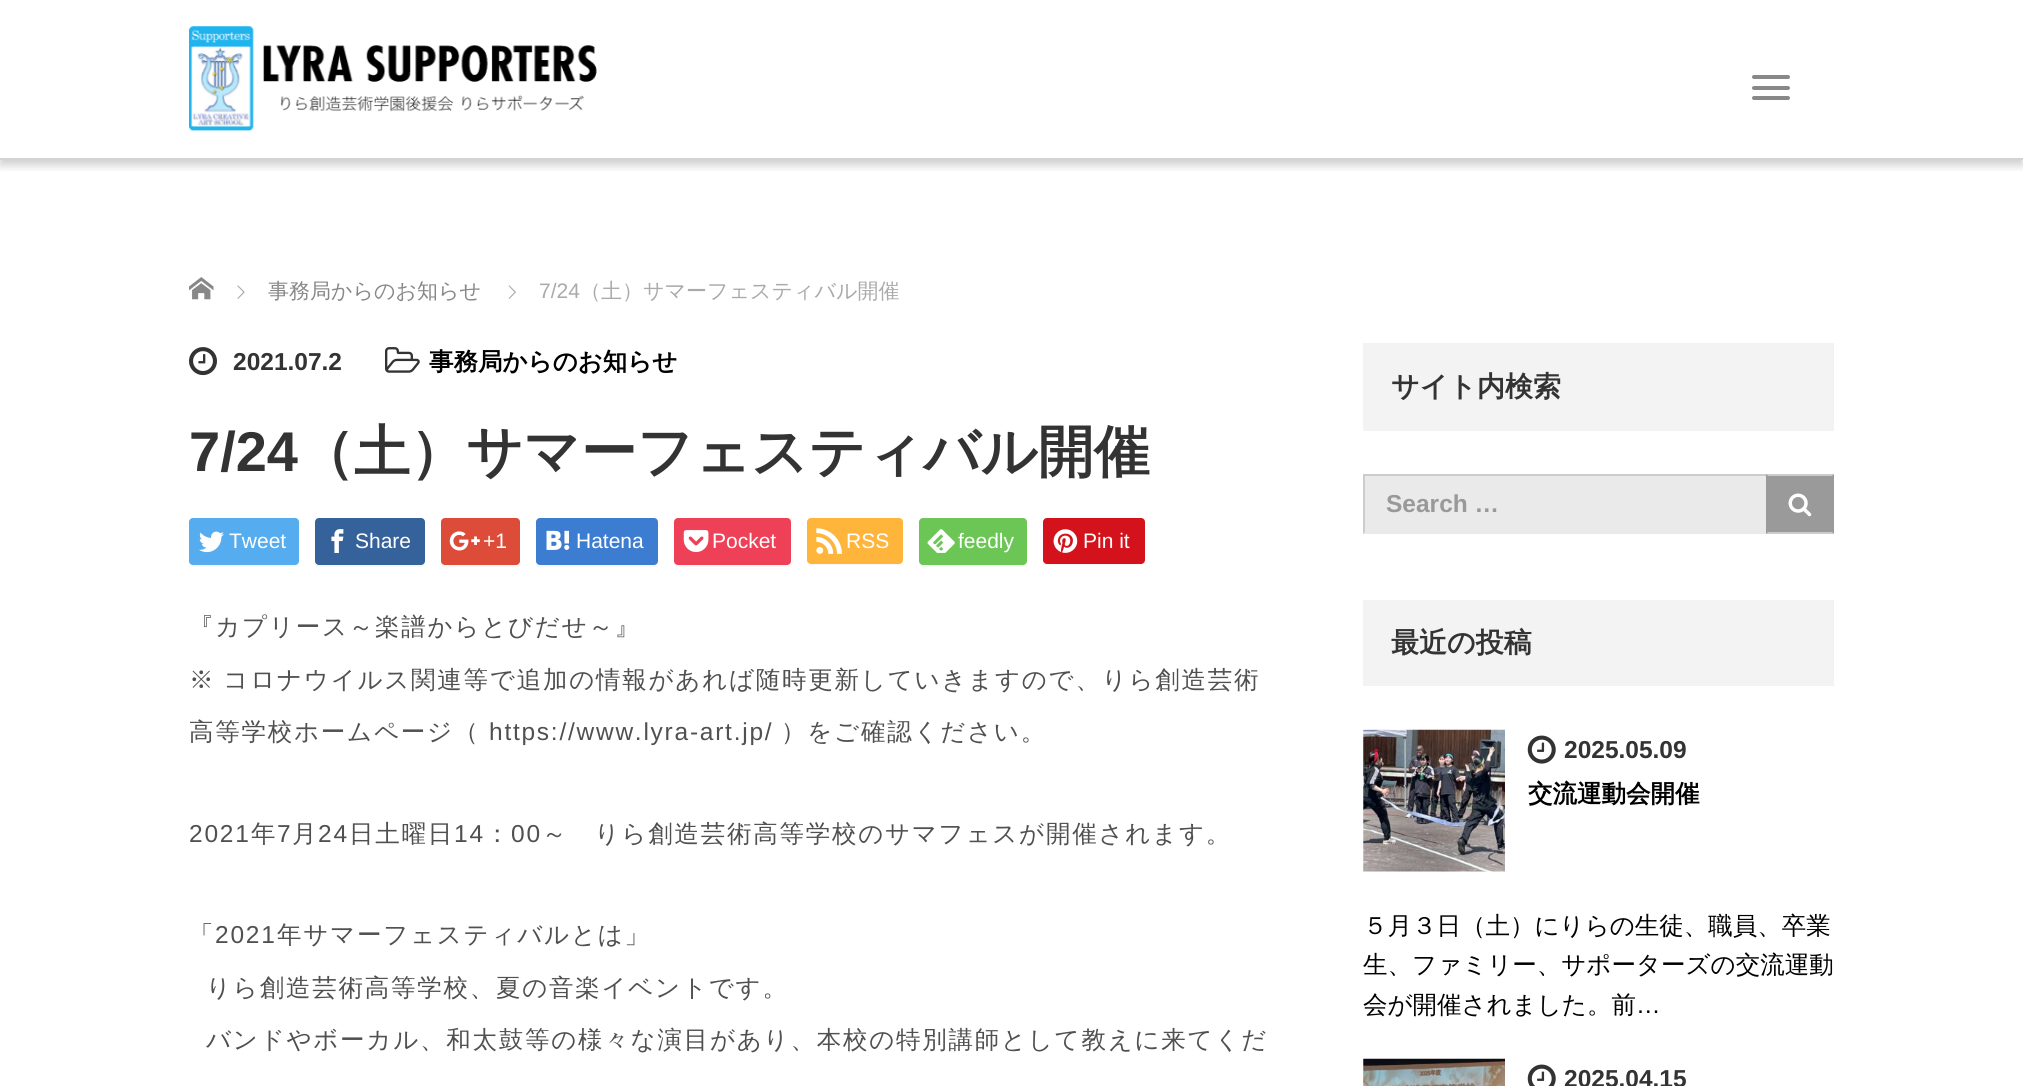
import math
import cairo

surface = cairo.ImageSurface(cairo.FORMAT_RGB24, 2023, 1086)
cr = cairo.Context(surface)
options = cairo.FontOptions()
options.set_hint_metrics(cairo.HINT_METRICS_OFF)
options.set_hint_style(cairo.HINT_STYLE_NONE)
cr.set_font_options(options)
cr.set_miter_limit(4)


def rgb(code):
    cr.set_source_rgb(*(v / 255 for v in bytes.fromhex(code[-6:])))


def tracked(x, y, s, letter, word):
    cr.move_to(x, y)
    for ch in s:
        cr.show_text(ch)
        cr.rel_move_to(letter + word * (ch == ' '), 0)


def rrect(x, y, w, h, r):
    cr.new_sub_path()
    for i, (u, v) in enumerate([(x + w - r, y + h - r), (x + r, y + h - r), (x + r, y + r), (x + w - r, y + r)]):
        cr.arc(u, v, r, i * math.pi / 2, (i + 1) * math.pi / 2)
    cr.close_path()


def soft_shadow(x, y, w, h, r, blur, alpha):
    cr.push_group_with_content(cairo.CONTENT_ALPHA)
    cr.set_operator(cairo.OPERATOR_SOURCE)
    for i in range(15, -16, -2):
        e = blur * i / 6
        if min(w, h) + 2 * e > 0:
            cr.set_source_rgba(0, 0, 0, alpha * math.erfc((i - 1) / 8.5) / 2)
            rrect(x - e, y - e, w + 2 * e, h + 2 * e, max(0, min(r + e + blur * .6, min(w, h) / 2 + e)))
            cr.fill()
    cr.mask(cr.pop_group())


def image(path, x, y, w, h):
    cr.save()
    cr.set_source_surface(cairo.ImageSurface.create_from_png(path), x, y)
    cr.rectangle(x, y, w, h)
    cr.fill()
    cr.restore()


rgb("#ffffff")
cr.paint()
cr.save()
cr.rectangle(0, 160, 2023, 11)
cr.clip()
rgb("#000000")
soft_shadow(0, 5, 2023, 160, 0, 5, 0.2)
cr.restore()
rgb("#d3d3d3")
cr.rectangle(0, 158, 2023, 2)
cr.fill()
image("img/1.png", 189, 26, 408, 105)
rgb("#888888")
rrect(1752, 75, 38, 4, 2)
cr.fill()
rrect(1752, 86, 38, 4, 2)
cr.fill()
rrect(1752, 96, 38, 4, 2)
cr.fill()
image("img/2.png", 189, 277, 25, 23)
image("img/3.png", 237, 285, 8, 14)
image("img/4.png", 508, 285, 8, 14)
image("img/5.png", 189, 347, 28, 29)
image("img/6.png", 385, 347, 35, 26)
rgb("#f7f7f7")
cr.new_path()
cr.move_to(189, 562)
cr.line_to(189, 563)
cr.curve_to(189, 565, 191, 567, 193, 567)
cr.line_to(295, 567)
cr.curve_to(297, 567, 299, 565, 299, 563)
cr.curve_to(298, 564, 297, 565, 296, 565)
cr.line_to(192, 565)
cr.curve_to(191, 565, 189, 564, 189, 562)
cr.close_path()
cr.fill()
rgb("#55acee")
rrect(189, 518, 110, 47, 4)
cr.fill()
image("img/7.png", 199, 531, 25, 22)
rgb("#f7f7f7")
cr.new_path()
cr.move_to(315, 562)
cr.line_to(315, 563)
cr.curve_to(315, 565, 317, 567, 319, 567)
cr.line_to(421, 567)
cr.curve_to(423, 567, 425, 565, 425, 563)
cr.curve_to(424, 564, 423, 565, 422, 565)
cr.line_to(318, 565)
cr.curve_to(317, 565, 315, 564, 315, 562)
cr.close_path()
cr.fill()
rgb("#35629a")
rrect(315, 518, 110, 47, 4)
cr.fill()
image("img/8.png", 331, 529, 13, 24)
rgb("#f7f7f7")
cr.new_path()
cr.move_to(441, 562)
cr.curve_to(441, 570, 451, 567, 457, 567)
cr.line_to(504, 567)
cr.curve_to(523, 567, 520, 569, 520, 550)
cr.line_to(520, 523)
cr.line_to(520, 562)
cr.curve_to(520, 564, 518, 565, 516, 565)
cr.line_to(444, 565)
cr.curve_to(443, 565, 441, 564, 441, 562)
cr.close_path()
cr.fill()
rgb("#dd4b39")
rrect(441, 518, 79, 47, 4)
cr.fill()
image("img/9.png", 449, 531, 31, 20)
rgb("#f7f7f7")
cr.new_path()
cr.move_to(536, 564)
cr.curve_to(536, 566, 538, 567, 540, 567)
cr.line_to(654, 567)
cr.curve_to(656, 567, 658, 565, 658, 563)
cr.line_to(658, 562)
cr.line_to(658, 563)
cr.curve_to(657, 564, 656, 565, 654, 565)
cr.line_to(538, 565)
cr.close_path()
cr.fill()
rgb("#3c7dd1")
rrect(536, 518, 122, 47, 4)
cr.fill()
image("img/10.png", 546, 530, 24, 20)
rgb("#f7f7f7")
cr.new_path()
cr.move_to(674, 563)
cr.curve_to(674, 565, 676, 567, 678, 567)
cr.line_to(787, 567)
cr.curve_to(789, 567, 791, 565, 791, 563)
cr.line_to(791, 562)
cr.curve_to(791, 564, 789, 565, 788, 565)
cr.line_to(677, 565)
cr.curve_to(676, 565, 675, 564, 674, 563)
cr.close_path()
cr.fill()
rgb("#ee4056")
rrect(674, 518, 117, 47, 4)
cr.fill()
image("img/11.png", 683, 530, 26, 23)
rgb("#f7f7f7")
cr.new_path()
cr.move_to(807, 561)
cr.curve_to(807, 563, 809, 565, 811, 565)
cr.line_to(899, 565)
cr.curve_to(901, 565, 903, 563, 903, 561)
cr.line_to(903, 560)
cr.curve_to(903, 562, 901, 564, 900, 564)
cr.line_to(810, 564)
cr.curve_to(809, 564, 808, 563, 807, 561)
cr.close_path()
cr.fill()
rgb("#ffb53c")
rrect(807, 518, 96, 46, 4)
cr.fill()
image("img/12.png", 816, 528, 26, 26)
rgb("#f7f7f7")
cr.new_path()
cr.move_to(919, 563)
cr.curve_to(919, 565, 921, 567, 923, 567)
cr.line_to(1023, 567)
cr.curve_to(1025, 567, 1027, 565, 1027, 563)
cr.curve_to(1027, 564, 1025, 565, 1024, 565)
cr.line_to(921, 565)
cr.close_path()
cr.fill()
rgb("#6cc655")
rrect(919, 518, 108, 47, 4)
cr.fill()
image("img/13.png", 927, 529, 28, 24)
rgb("#f7f7f7")
cr.new_path()
cr.move_to(1043, 560)
cr.line_to(1043, 561)
cr.curve_to(1043, 563, 1045, 565, 1047, 565)
cr.line_to(1141, 565)
cr.curve_to(1143, 565, 1145, 563, 1145, 561)
cr.line_to(1145, 524)
cr.line_to(1144, 522)
cr.line_to(1144, 560)
cr.curve_to(1144, 562, 1143, 564, 1141, 564)
cr.line_to(1046, 564)
cr.curve_to(1045, 564, 1043, 562, 1043, 560)
cr.close_path()
cr.fill()
rgb("#d4121c")
rrect(1043, 518, 102, 46, 4)
cr.fill()
image("img/14.png", 1053, 529, 25, 24)
for x, y, w, h, color in [
    (1363, 343, 471, 88, "#f3f3f3"),
    (1363, 476, 403, 58, "#eaeaea"),
    (1363, 474, 405, 2, "#cccccc"),
]:
    rgb(color)
    cr.rectangle(x, y, w, h)
    cr.fill()
cr.new_path()
cr.move_to(1363, 534)
cr.line_to(1363, 474)
cr.line_to(1365, 476)
cr.line_to(1365, 532)
cr.close_path()
cr.fill()
rgb("#9a9a9a")
cr.rectangle(1766, 474, 68, 60)
cr.fill()
rgb("#cccccc")
cr.new_path()
cr.move_to(1766, 474)
cr.line_to(1834, 474)
cr.line_to(1832, 476)
cr.line_to(1768, 476)
cr.close_path()
cr.fill()
cr.new_path()
cr.move_to(1834, 534)
cr.line_to(1766, 534)
cr.line_to(1768, 532)
cr.line_to(1832, 532)
cr.close_path()
cr.fill()
image("img/15.png", 1788, 493, 24, 24)
rgb("#f3f3f3")
cr.rectangle(1363, 600, 471, 86)
cr.fill()
image("img/16.png", 1363, 729, 142, 143)
image("img/17.png", 1527, 735, 29, 29)
image("img/18.png", 1363, 1058, 142, 28)
image("img/19.png", 1527, 1064, 29, 22)
cr.select_font_face("WenQuanYi Zen Hei Medium")
cr.set_font_size(21)
rgb("#888888")
cr.move_to(268, 298)
cr.show_text("事務局からのお知らせ")
cr.select_font_face("Liberation Sans")
rgb("#aaaaaa")
cr.move_to(539, 298)
cr.show_text("7/24")
cr.select_font_face("WenQuanYi Zen Hei Medium")
cr.move_to(580, 298)
cr.show_text("（土）サマーフェスティバル開催")
cr.select_font_face("Liberation Sans", cairo.FONT_SLANT_NORMAL, cairo.FONT_WEIGHT_BOLD)
cr.set_font_size(24.5)
rgb("#333333")
cr.move_to(233, 370)
cr.show_text("2021.07.2")
cr.select_font_face("WenQuanYi Zen Hei", cairo.FONT_SLANT_NORMAL, cairo.FONT_WEIGHT_BOLD)
rgb("#000000")
cr.move_to(429, 370)
cr.show_text("事務局からのお知らせ")
cr.select_font_face("Liberation Sans", cairo.FONT_SLANT_NORMAL, cairo.FONT_WEIGHT_BOLD)
cr.set_font_size(56)
rgb("#333333")
cr.move_to(189, 471)
cr.show_text("7/24")
cr.select_font_face("WenQuanYi Zen Hei", cairo.FONT_SLANT_NORMAL, cairo.FONT_WEIGHT_BOLD)
cr.move_to(298, 471)
cr.show_text("（土）サマーフェスティバル開催")
cr.select_font_face("Liberation Sans")
cr.set_font_size(21)
rgb("#ffffff")
for x, y, s in [
    (229, 548, "Tweet"),
    (355, 548, "Share"),
    (483, 548, "+1"),
    (576, 548, "Hatena"),
    (712, 548, "Pocket"),
    (846, 548, "RSS"),
    (958, 548, "feedly"),
    (1083, 548, "Pin it"),
]:
    cr.move_to(x, y)
    cr.show_text(s)
cr.select_font_face("WenQuanYi Zen Hei Medium")
cr.set_font_size(24.5)
rgb("#505050")
tracked(189, 635, "『カプリース～楽譜からとびだせ～』", 1.75, 0)
tracked(189, 688, "※ コロナウイルス関連等で追加の情報があれば随時更新していきますので、りら創造芸術", 1.75, -1)
tracked(189, 740, "高等学校ホームページ（", 1.75, 0)
cr.select_font_face("Liberation Sans")
tracked(489, 740, "https://www.lyra-art.jp/", 1.75, 0)
cr.select_font_face("WenQuanYi Zen Hei Medium")
tracked(781, 740, "）をご確認ください。", 1.75, 0)
cr.select_font_face("Liberation Sans")
tracked(189, 842, "2021", 1.75, 0)
cr.select_font_face("WenQuanYi Zen Hei Medium")
tracked(251, 842, "年", 1.75, 0)
cr.select_font_face("Liberation Sans")
tracked(277, 842, "7", 1.75, 0)
cr.select_font_face("WenQuanYi Zen Hei Medium")
tracked(292, 842, "月", 1.75, 0)
cr.select_font_face("Liberation Sans")
tracked(318, 842, "24", 1.75, 0)
cr.select_font_face("WenQuanYi Zen Hei Medium")
tracked(349, 842, "日土曜日", 1.75, 0)
cr.select_font_face("Liberation Sans")
tracked(454, 842, "14", 1.75, 0)
cr.select_font_face("WenQuanYi Zen Hei Medium")
tracked(485, 842, "：", 1.75, 0)
cr.select_font_face("Liberation Sans")
tracked(511, 842, "00", 1.75, 0)
cr.select_font_face("WenQuanYi Zen Hei Medium")
tracked(542, 842, "～　りら創造芸術高等学校のサマフェスが開催されます。", 1.75, 0)
tracked(189, 943, "「", 1.75, 0)
cr.select_font_face("Liberation Sans")
tracked(215, 943, "2021", 1.75, 0)
cr.select_font_face("WenQuanYi Zen Hei Medium")
for x, y, s in [
    (277, 943, "年サマーフェスティバルとは」"),
    (206, 996, "りら創造芸術高等学校、夏の音楽イベントです。"),
    (206, 1048, "バンドやボーカル、和太鼓等の様々な演目があり、本校の特別講師として教えに来てくだ"),
]:
    tracked(x, y, s, 1.75, 0)
cr.select_font_face("WenQuanYi Zen Hei", cairo.FONT_SLANT_NORMAL, cairo.FONT_WEIGHT_BOLD)
cr.set_font_size(28)
rgb("#333333")
cr.move_to(1391, 396)
cr.show_text("サイト内検索")
cr.select_font_face("Liberation Sans", cairo.FONT_SLANT_NORMAL, cairo.FONT_WEIGHT_BOLD)
cr.set_font_size(24.5)
rgb("#999999")
cr.move_to(1386, 512)
cr.show_text("Search …")
cr.select_font_face("WenQuanYi Zen Hei", cairo.FONT_SLANT_NORMAL, cairo.FONT_WEIGHT_BOLD)
cr.set_font_size(28)
rgb("#333333")
cr.move_to(1391, 652)
cr.show_text("最近の投稿")
cr.select_font_face("Liberation Sans", cairo.FONT_SLANT_NORMAL, cairo.FONT_WEIGHT_BOLD)
cr.set_font_size(24.5)
cr.move_to(1564, 758)
cr.show_text("2025.05.09")
cr.select_font_face("WenQuanYi Zen Hei", cairo.FONT_SLANT_NORMAL, cairo.FONT_WEIGHT_BOLD)
rgb("#000000")
cr.move_to(1528, 802)
cr.show_text("交流運動会開催")
cr.select_font_face("WenQuanYi Zen Hei Medium")
for x, y, s in [
    (1363, 934, "５月３日（土）にりらの生徒、職員、卒業"),
    (1363, 973, "生、ファミリー、サポーターズの交流運動"),
    (1363, 1013, "会が開催されました。前"),
]:
    cr.move_to(x, y)
    cr.show_text(s)
cr.select_font_face("Liberation Sans")
cr.move_to(1636, 1013)
cr.show_text("…")
cr.select_font_face("Liberation Sans", cairo.FONT_SLANT_NORMAL, cairo.FONT_WEIGHT_BOLD)
rgb("#333333")
cr.move_to(1564, 1087)
cr.show_text("2025.04.15")
surface.write_to_png("page.png")
